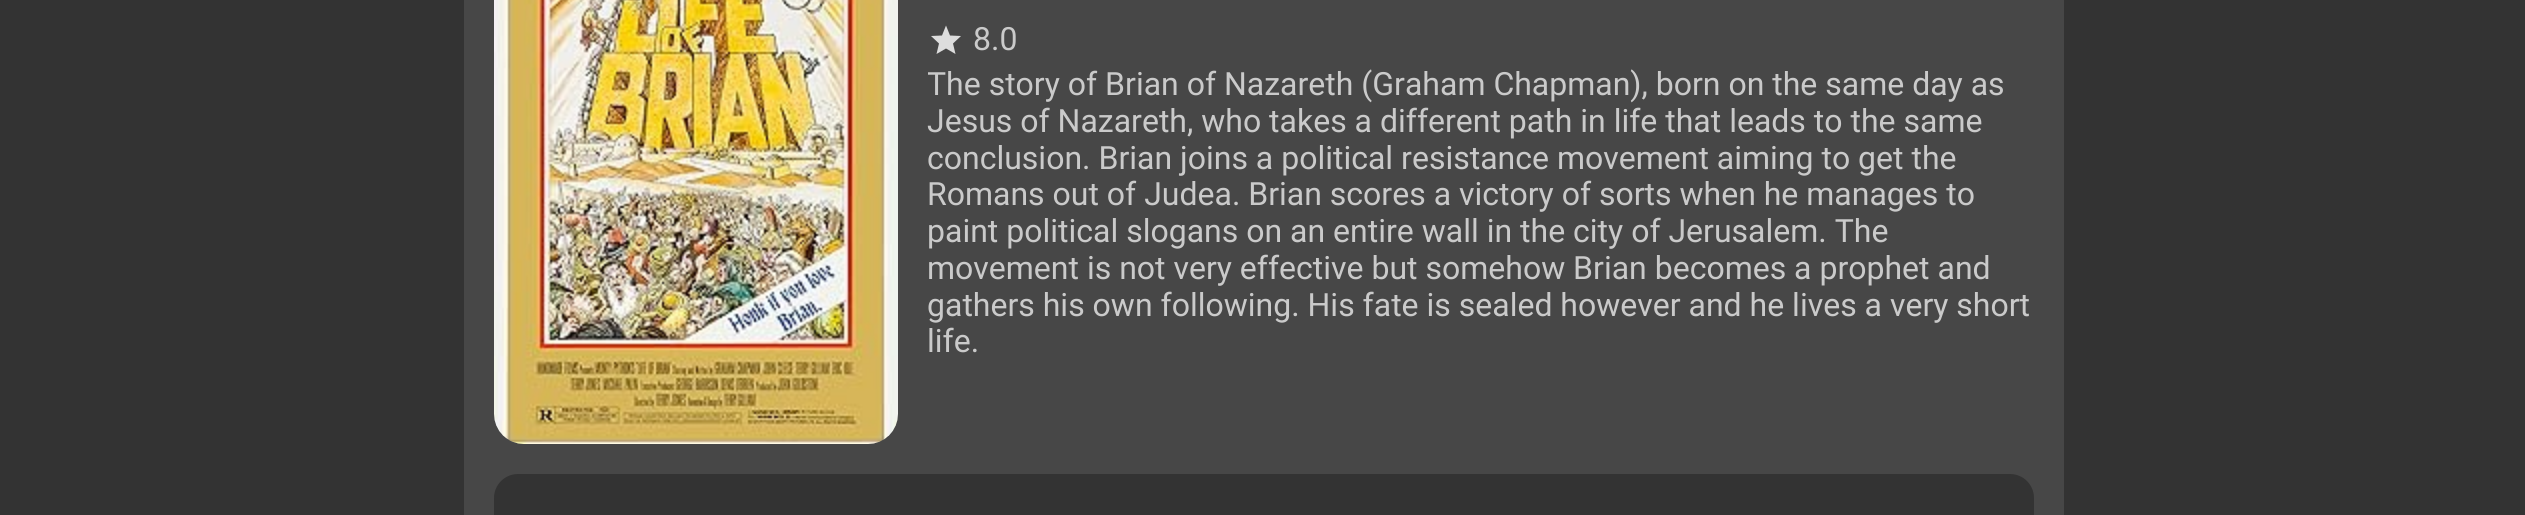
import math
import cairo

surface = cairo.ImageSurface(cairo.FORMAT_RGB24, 2525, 515)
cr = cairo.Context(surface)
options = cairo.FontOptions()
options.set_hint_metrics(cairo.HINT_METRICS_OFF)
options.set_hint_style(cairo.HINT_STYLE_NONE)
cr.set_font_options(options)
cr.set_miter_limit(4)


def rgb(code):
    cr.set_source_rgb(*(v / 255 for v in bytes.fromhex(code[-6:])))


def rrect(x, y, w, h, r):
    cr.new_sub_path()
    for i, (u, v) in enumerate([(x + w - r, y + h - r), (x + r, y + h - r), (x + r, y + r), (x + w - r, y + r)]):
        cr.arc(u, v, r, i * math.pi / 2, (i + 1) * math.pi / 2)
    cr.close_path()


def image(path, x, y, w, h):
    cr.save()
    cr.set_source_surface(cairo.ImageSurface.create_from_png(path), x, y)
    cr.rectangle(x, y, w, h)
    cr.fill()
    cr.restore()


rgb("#333333")
cr.paint()
rgb("#474747")
cr.rectangle(464, 0, 1600, 515)
cr.fill()
image("img/1.png", 494, 0, 404, 444)
rgb("#dddddd")
cr.new_path()
cr.move_to(946, 48.5)
cr.line_to(955.5, 54)
cr.line_to(953, 43.5)
cr.line_to(961, 36)
cr.line_to(950, 35.5)
cr.line_to(946, 25.5)
cr.line_to(942, 35.5)
cr.line_to(931, 36)
cr.line_to(939, 43.5)
cr.line_to(936.5, 54)
cr.close_path()
cr.fill()
rgb("#333333")
rrect(494, 474, 1540, 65, 24)
cr.fill()
cr.select_font_face("Roboto")
cr.set_font_size(32)
rgb("#cacaca")
cr.move_to(973, 50)
cr.show_text("8.0")
cr.save()
cr.rectangle(928, 68, 1106, 294)
cr.clip()
cr.move_to(927, 95)
cr.show_text("The story of Brian of Nazareth (Graham Chapman), born on the same day as")
cr.restore()
for x, y, s in [
    (927, 132, "Jesus of Nazareth, who takes a different path in life that leads to the same"),
    (927, 169, "conclusion. Brian joins a political resistance movement aiming to get the"),
    (927, 205, "Romans out of Judea. Brian scores a victory of sorts when he manages to"),
    (927, 242, "paint political slogans on an entire wall in the city of Jerusalem. The"),
    (927, 279, "movement is not very effective but somehow Brian becomes a prophet and"),
    (927, 316, "gathers his own following. His fate is sealed however and he lives a very short"),
    (927, 352, "life."),
]:
    cr.move_to(x, y)
    cr.show_text(s)
surface.write_to_png("page.png")
